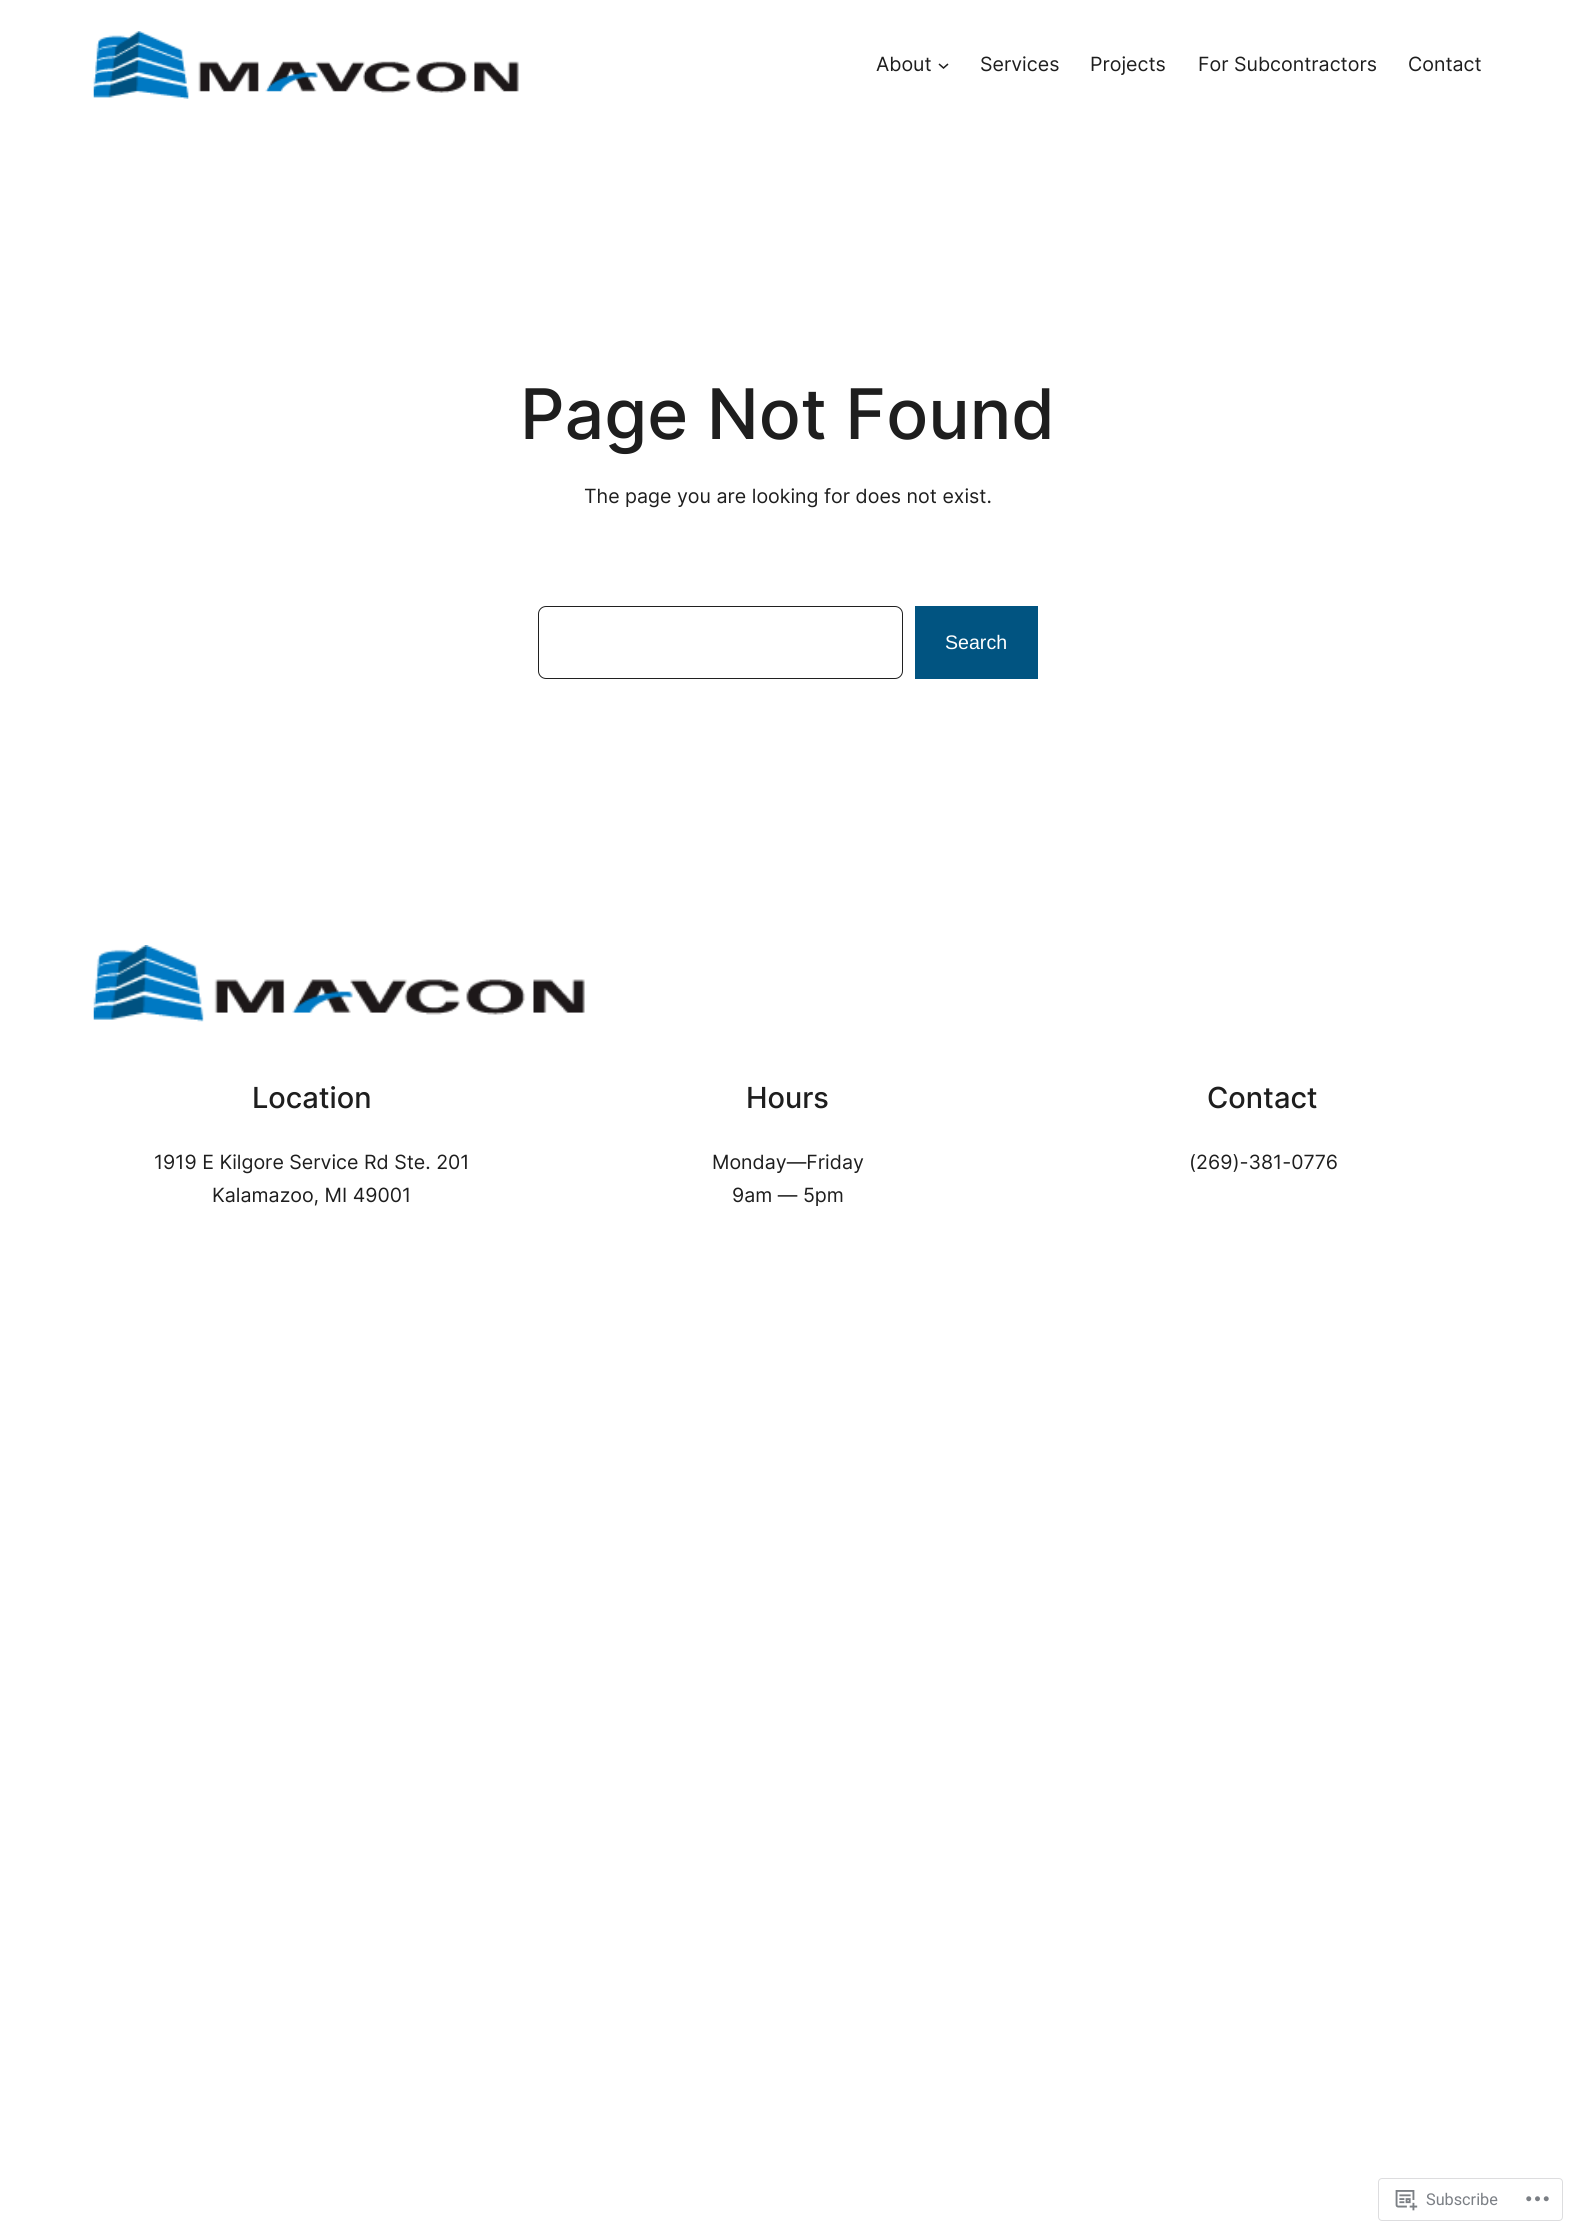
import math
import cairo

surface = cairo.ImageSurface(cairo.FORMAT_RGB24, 1574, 2233)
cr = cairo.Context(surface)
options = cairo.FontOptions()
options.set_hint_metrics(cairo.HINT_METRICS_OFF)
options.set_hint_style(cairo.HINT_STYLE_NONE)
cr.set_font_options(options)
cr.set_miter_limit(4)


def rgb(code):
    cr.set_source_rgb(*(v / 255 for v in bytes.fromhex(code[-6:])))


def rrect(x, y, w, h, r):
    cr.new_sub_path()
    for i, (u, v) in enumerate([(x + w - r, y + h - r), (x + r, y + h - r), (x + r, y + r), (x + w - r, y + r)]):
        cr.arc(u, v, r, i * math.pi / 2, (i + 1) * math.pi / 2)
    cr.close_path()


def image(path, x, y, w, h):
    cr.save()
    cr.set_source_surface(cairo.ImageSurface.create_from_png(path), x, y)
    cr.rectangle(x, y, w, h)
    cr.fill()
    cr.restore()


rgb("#ffffff")
cr.paint()
image("img/1.png", 93, 31, 426, 68)
cr.new_path()
cr.move_to(939, 64)
cr.line_to(943.5, 68)
cr.line_to(948, 64)
rgb("#1e1e1e")
cr.set_line_width(1.5)
cr.stroke()
rrect(538.5, 606.5, 364, 72, 7.5)
rgb("#202020")
cr.set_line_width(1)
cr.stroke()
rgb("#015481")
cr.rectangle(915, 606, 123, 73)
cr.fill()
image("img/2.png", 93, 945, 492, 77)
rrect(1378.5, 2178.5, 184, 42, 3.5)
rgb("#dddddf")
cr.stroke()
image("img/3.png", 1395, 2190, 23, 21)
image("img/4.png", 1526, 2196, 23, 6)
cr.select_font_face("Inter")
cr.set_font_size(19.6)
rgb("#1e1e1e")
for x, y, s in [
    (876, 71, "About"),
    (980, 71, "Services"),
    (1090, 71, "Projects"),
    (1198, 71, "For Subcontractors"),
    (1408, 71, "Contact"),
]:
    cr.move_to(x, y)
    cr.show_text(s)
cr.select_font_face("Inter Medium")
cr.set_font_size(69.75)
cr.move_to(520, 439)
cr.show_text("Page Not Found")
cr.select_font_face("Inter")
cr.set_font_size(19.6)
cr.move_to(584, 503)
cr.show_text("The page you are looking for does not exist.")
cr.select_font_face("Liberation Sans")
rgb("#ffffff")
cr.move_to(945, 649)
cr.show_text("Search")
cr.select_font_face("Inter Medium")
cr.set_font_size(29)
rgb("#1e1e1e")
cr.move_to(252, 1108)
cr.show_text("Location")
cr.select_font_face("Inter")
cr.set_font_size(19.6)
cr.move_to(154, 1169)
cr.show_text("1919 E Kilgore Service Rd Ste. 201")
cr.move_to(212, 1202)
cr.show_text("Kalamazoo, MI 49001")
cr.select_font_face("Inter Medium")
cr.set_font_size(29)
cr.move_to(746, 1108)
cr.show_text("Hours")
cr.select_font_face("Inter")
cr.set_font_size(19.6)
cr.move_to(712, 1169)
cr.show_text("Monday—Friday")
cr.move_to(732, 1202)
cr.show_text("9am — 5pm")
cr.select_font_face("Inter Medium")
cr.set_font_size(29)
cr.move_to(1207, 1108)
cr.show_text("Contact")
cr.select_font_face("Inter")
cr.set_font_size(19.6)
cr.move_to(1189, 1169)
cr.show_text("(269)-381-0776")
cr.select_font_face("Roboto")
cr.set_font_size(16.25)
rgb("#7b7f85")
cr.move_to(1426, 2205)
cr.show_text("Subscribe")
surface.write_to_png("page.png")
